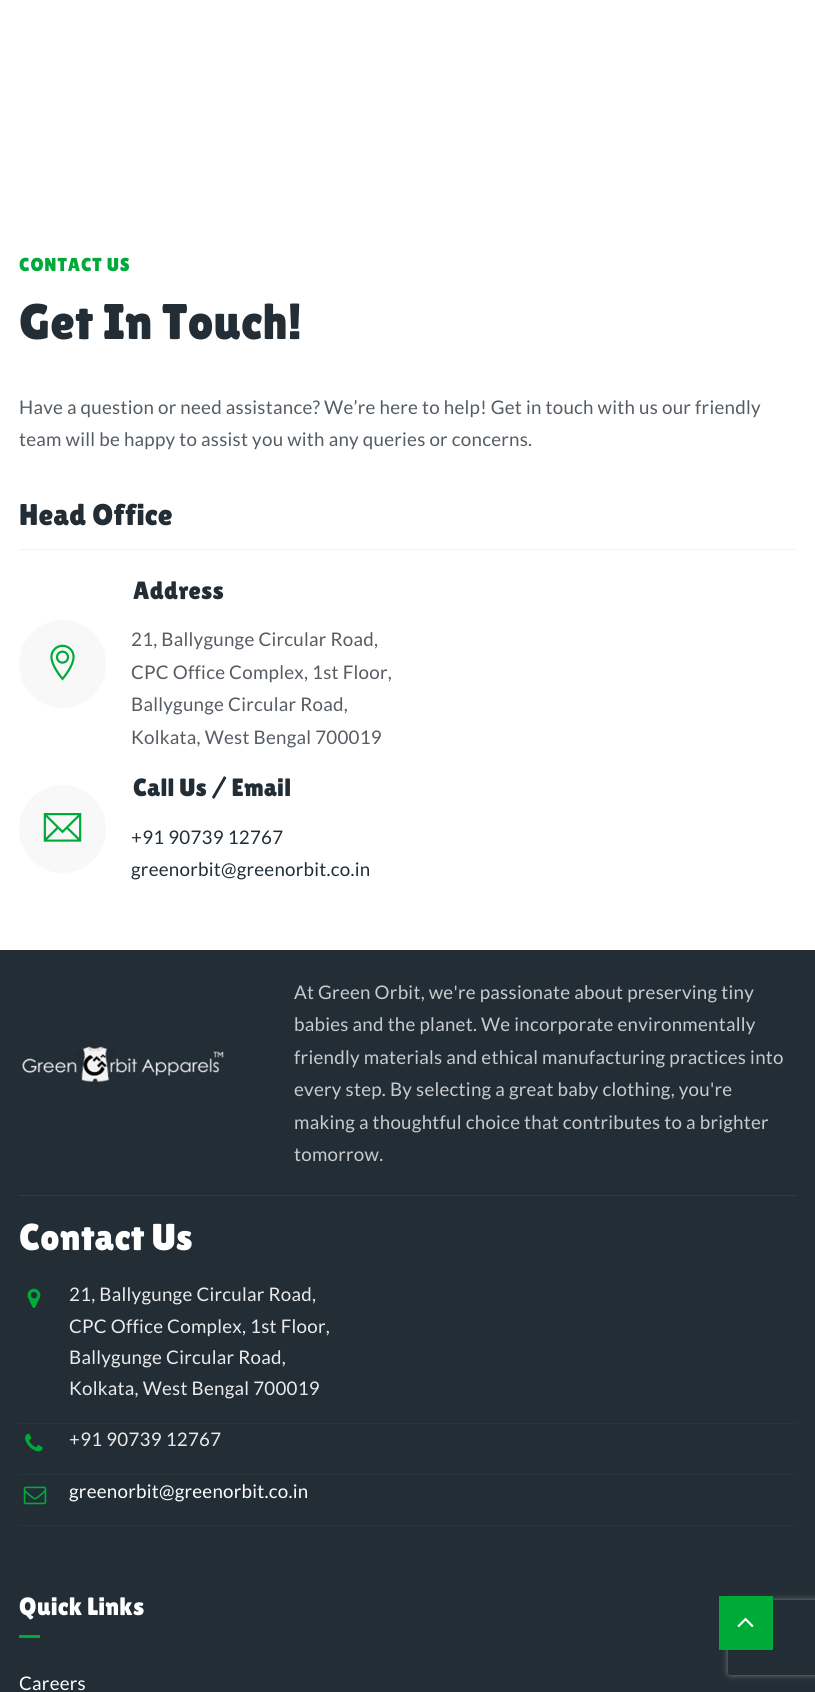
import math
import cairo

surface = cairo.ImageSurface(cairo.FORMAT_RGB24, 815, 1692)
cr = cairo.Context(surface)
options = cairo.FontOptions()
options.set_hint_metrics(cairo.HINT_METRICS_OFF)
options.set_hint_style(cairo.HINT_STYLE_NONE)
cr.set_font_options(options)
cr.set_miter_limit(4)


def rgb(code):
    cr.set_source_rgb(*(v / 255 for v in bytes.fromhex(code[-6:])))


def tracked(x, y, s, letter, word):
    cr.move_to(x, y)
    for ch in s:
        cr.show_text(ch)
        cr.rel_move_to(letter + word * (ch == ' '), 0)


def rrect(x, y, w, h, r):
    cr.new_sub_path()
    for i, (u, v) in enumerate([(x + w - r, y + h - r), (x + r, y + h - r), (x + r, y + r), (x + w - r, y + r)]):
        cr.arc(u, v, r, i * math.pi / 2, (i + 1) * math.pi / 2)
    cr.close_path()


def soft_shadow(x, y, w, h, r, blur, alpha):
    cr.push_group_with_content(cairo.CONTENT_ALPHA)
    cr.set_operator(cairo.OPERATOR_SOURCE)
    for i in range(15, -16, -2):
        e = blur * i / 6
        if min(w, h) + 2 * e > 0:
            cr.set_source_rgba(0, 0, 0, alpha * math.erfc((i - 1) / 8.5) / 2)
            rrect(x - e, y - e, w + 2 * e, h + 2 * e, max(0, min(r + e + blur * .6, min(w, h) / 2 + e)))
            cr.fill()
    cr.mask(cr.pop_group())


def image(path, x, y, w, h):
    cr.save()
    cr.set_source_surface(cairo.ImageSurface.create_from_png(path), x, y)
    cr.rectangle(x, y, w, h)
    cr.fill()
    cr.restore()


rgb("#ffffff")
cr.paint()
rgb("#f3f3f3")
cr.rectangle(19, 549, 777, 1)
cr.fill()
rgb("#f8f8f8")
rrect(19, 620, 87, 88, 43.5)
cr.fill()
image("img/1.png", 50, 644, 25, 37)
rrect(19, 785, 87, 88, 43.5)
cr.fill()
image("img/2.png", 43, 813, 39, 29)
rgb("#222d35")
cr.rectangle(0, 950, 815, 742)
cr.fill()
image("img/3.png", 22, 1046, 202, 36)
rgb("#2f3a41")
cr.rectangle(19, 1195, 777, 1)
cr.fill()
rgb("#29343b")
cr.rectangle(19, 1423, 777, 1)
cr.fill()
image("img/4.png", 27, 1288, 14, 20)
cr.rectangle(19, 1474, 777, 1)
cr.fill()
image("img/5.png", 25, 1433, 18, 19)
cr.rectangle(19, 1525, 777, 1)
cr.fill()
image("img/6.png", 23, 1486, 24, 19)
rgb("#00aa38")
cr.rectangle(19, 1635, 21, 3)
cr.fill()
cr.save()
cr.set_fill_rule(cairo.FILL_RULE_EVEN_ODD)
cr.new_path()
cr.move_to(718, 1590)
cr.line_to(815, 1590)
cr.line_to(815, 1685)
cr.line_to(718, 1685)
cr.close_path()
cr.move_to(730.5, 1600)
cr.line_to(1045.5, 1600)
cr.curve_to(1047, 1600, 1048, 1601, 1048, 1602.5)
cr.line_to(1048, 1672.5)
cr.curve_to(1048, 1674, 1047, 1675, 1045.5, 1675)
cr.line_to(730.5, 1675)
cr.curve_to(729, 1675, 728, 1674, 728, 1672.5)
cr.line_to(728, 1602.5)
cr.curve_to(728, 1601, 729, 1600, 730.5, 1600)
cr.close_path()
cr.clip()
rgb("#808080")
soft_shadow(728, 1600, 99, 75, 2.5, 3, 1)
cr.restore()
cr.rectangle(719, 1596, 54, 54)
cr.fill()
image("img/7.png", 737, 1617, 17, 11)
cr.select_font_face("Lilita One")
cr.set_font_size(18.75)
tracked(19, 271, "CONTACT US", 0.9, 0)
cr.set_font_size(50)
rgb("#222d35")
tracked(19, 339, "Get In Touch!", 0.25, 0)
cr.select_font_face("Lato")
cr.set_font_size(18.75)
rgb("#555c63")
tracked(19, 414, "Have a question or need assistance? We’re here to help! Get in touch with us our friendly", 0.25, 0)
tracked(19, 446, "team will be happy to assist you with any queries or concerns.", 0.25, 0)
cr.select_font_face("Lilita One")
cr.set_font_size(30)
rgb("#222d35")
tracked(19, 525, "Head Office", 0.25, 0)
cr.set_font_size(25)
tracked(133, 599, "Address", 0.25, 0)
cr.select_font_face("Lato")
cr.set_font_size(18.75)
rgb("#555c63")
for x, y, s in [
    (131, 646, "21, Ballygunge Circular Road,"),
    (131, 679, "CPC Office Complex, 1st Floor,"),
    (131, 711, "Ballygunge Circular Road,"),
    (131, 744, "Kolkata, West Bengal 700019"),
]:
    tracked(x, y, s, 0.25, 0)
cr.select_font_face("Lilita One")
cr.set_font_size(25)
rgb("#222d35")
tracked(133, 796, "Call Us / Email", 0.25, 0)
cr.select_font_face("Lato")
cr.set_font_size(18.75)
tracked(131, 844, "+91 90739 12767", 0.25, 0)
tracked(131, 876, "greenorbit@greenorbit.co.in", 0.25, 0)
rgb("#c8cbcd")
for x, y, s in [
    (294, 999, "At Green Orbit, we're passionate about preserving tiny"),
    (294, 1031, "babies and the planet. We incorporate environmentally"),
    (294, 1064, "friendly materials and ethical manufacturing practices into"),
    (294, 1096, "every step. By selecting a great baby clothing, you're"),
    (294, 1129, "making a thoughtful choice that contributes to a brighter"),
    (294, 1161, "tomorrow."),
]:
    tracked(x, y, s, 0.25, 0)
cr.select_font_face("Lilita One")
cr.set_font_size(37.5)
rgb("#ffffff")
tracked(19, 1250, "Contact Us", 0.25, 0)
cr.select_font_face("Lato")
cr.set_font_size(18.75)
rgb("#e9eaeb")
for x, y, s in [
    (69, 1301, "21, Ballygunge Circular Road,"),
    (69, 1333, "CPC Office Complex, 1st Floor,"),
    (69, 1364, "Ballygunge Circular Road,"),
    (69, 1395, "Kolkata, West Bengal 700019"),
    (69, 1446, "+91 90739 12767"),
]:
    tracked(x, y, s, 0.25, 0)
rgb("#ffffff")
tracked(69, 1498, "greenorbit@greenorbit.co.in", 0.25, 0)
cr.select_font_face("Lilita One")
cr.set_font_size(25)
tracked(19, 1615, "Quick Links", 0.25, 0)
cr.select_font_face("Lato")
cr.set_font_size(18.75)
tracked(19, 1690, "Careers", 0.25, 0)
surface.write_to_png("page.png")
